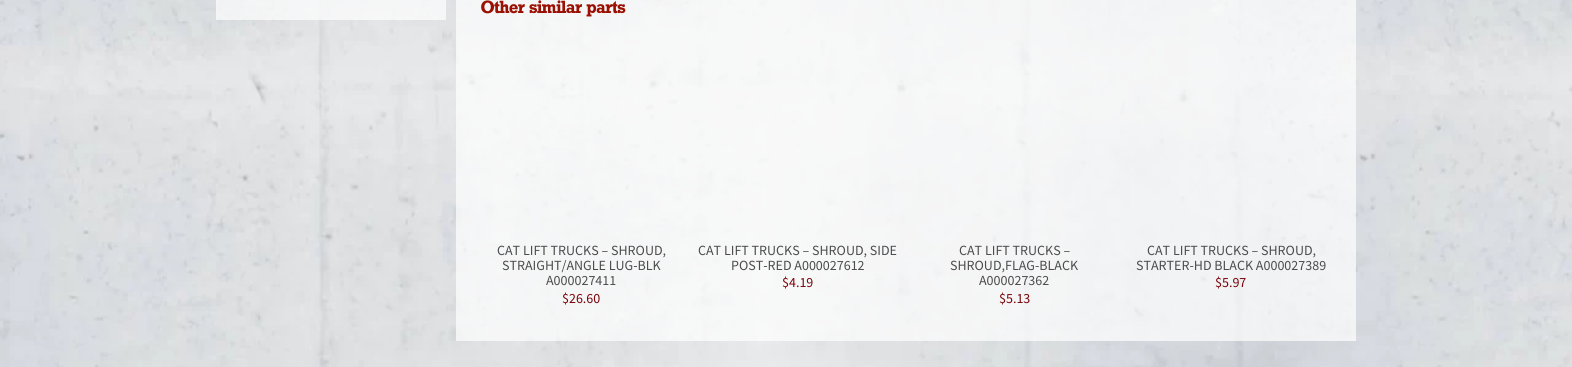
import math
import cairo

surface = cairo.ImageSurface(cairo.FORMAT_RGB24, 1572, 367)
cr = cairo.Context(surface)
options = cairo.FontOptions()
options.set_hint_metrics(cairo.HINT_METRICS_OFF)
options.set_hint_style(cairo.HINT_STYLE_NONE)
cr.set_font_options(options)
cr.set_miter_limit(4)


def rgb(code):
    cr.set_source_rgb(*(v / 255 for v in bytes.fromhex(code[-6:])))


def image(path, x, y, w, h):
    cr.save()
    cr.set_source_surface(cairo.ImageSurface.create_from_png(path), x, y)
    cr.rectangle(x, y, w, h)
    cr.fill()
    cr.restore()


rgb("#ffffff")
cr.paint()
image("img/1.png", 0, 0, 1572, 367)
cr.set_source_rgba(1, 1, 1, 0.7)
cr.rectangle(216, 0, 230, 20)
cr.fill()
cr.rectangle(456, 0, 900, 341)
cr.fill()
cr.select_font_face("Rockwell", cairo.FONT_SLANT_NORMAL, cairo.FONT_WEIGHT_BOLD)
cr.set_font_size(17)
rgb("#9a1002")
cr.move_to(481, 13)
cr.show_text("Other similar parts")
cr.select_font_face("Source Sans Pro")
cr.set_font_size(14)
rgb("#4c4c4c")
for x, y, s in [
    (497, 255, "CAT LIFT TRUCKS – SHROUD,"),
    (502, 270, "STRAIGHT/ANGLE LUG-BLK"),
    (546, 285, "A000027411"),
]:
    cr.move_to(x, y)
    cr.show_text(s)
rgb("#7a040a")
cr.move_to(562, 303)
cr.show_text("$26.60")
rgb("#4c4c4c")
cr.move_to(698, 255)
cr.show_text("CAT LIFT TRUCKS – SHROUD, SIDE")
cr.move_to(731, 270)
cr.show_text("POST-RED A000027612")
rgb("#7a040a")
cr.move_to(782, 287)
cr.show_text("$4.19")
rgb("#4c4c4c")
for x, y, s in [
    (959, 255, "CAT LIFT TRUCKS –"),
    (950, 270, "SHROUD,FLAG-BLACK"),
    (979, 285, "A000027362"),
]:
    cr.move_to(x, y)
    cr.show_text(s)
rgb("#7a040a")
cr.move_to(999, 303)
cr.show_text("$5.13")
rgb("#4c4c4c")
cr.move_to(1147, 255)
cr.show_text("CAT LIFT TRUCKS – SHROUD,")
cr.move_to(1136, 270)
cr.show_text("STARTER-HD BLACK A000027389")
rgb("#7a040a")
cr.move_to(1215, 287)
cr.show_text("$5.97")
surface.write_to_png("page.png")
